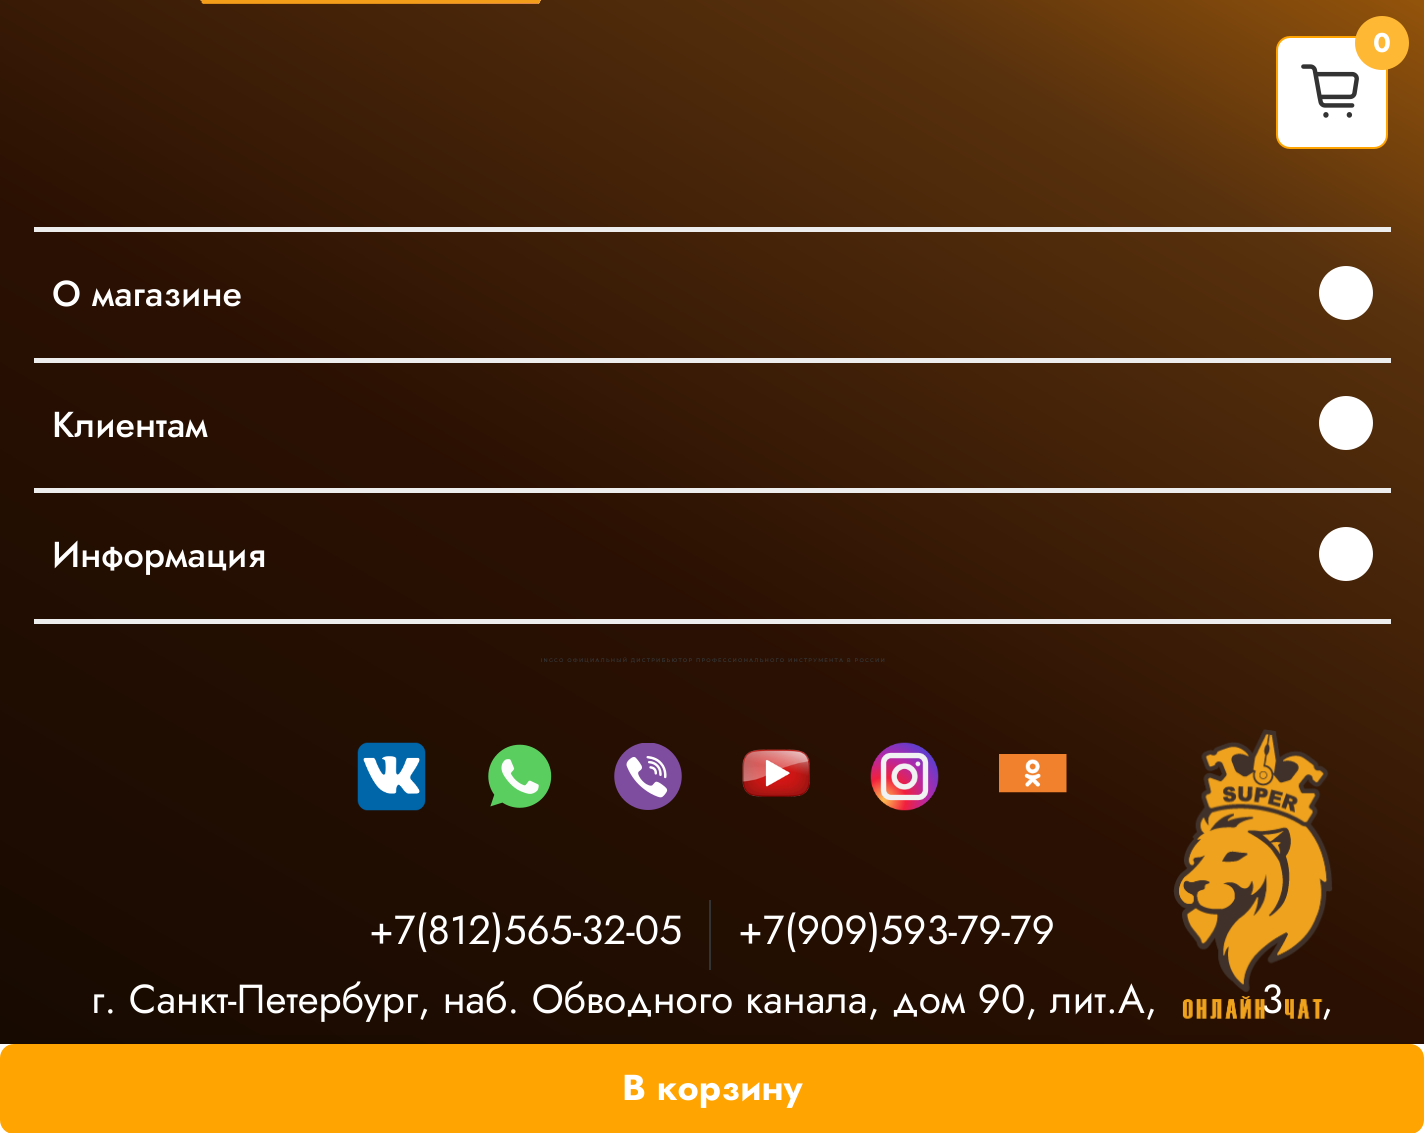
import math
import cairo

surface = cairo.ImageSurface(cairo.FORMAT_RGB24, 1424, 1133)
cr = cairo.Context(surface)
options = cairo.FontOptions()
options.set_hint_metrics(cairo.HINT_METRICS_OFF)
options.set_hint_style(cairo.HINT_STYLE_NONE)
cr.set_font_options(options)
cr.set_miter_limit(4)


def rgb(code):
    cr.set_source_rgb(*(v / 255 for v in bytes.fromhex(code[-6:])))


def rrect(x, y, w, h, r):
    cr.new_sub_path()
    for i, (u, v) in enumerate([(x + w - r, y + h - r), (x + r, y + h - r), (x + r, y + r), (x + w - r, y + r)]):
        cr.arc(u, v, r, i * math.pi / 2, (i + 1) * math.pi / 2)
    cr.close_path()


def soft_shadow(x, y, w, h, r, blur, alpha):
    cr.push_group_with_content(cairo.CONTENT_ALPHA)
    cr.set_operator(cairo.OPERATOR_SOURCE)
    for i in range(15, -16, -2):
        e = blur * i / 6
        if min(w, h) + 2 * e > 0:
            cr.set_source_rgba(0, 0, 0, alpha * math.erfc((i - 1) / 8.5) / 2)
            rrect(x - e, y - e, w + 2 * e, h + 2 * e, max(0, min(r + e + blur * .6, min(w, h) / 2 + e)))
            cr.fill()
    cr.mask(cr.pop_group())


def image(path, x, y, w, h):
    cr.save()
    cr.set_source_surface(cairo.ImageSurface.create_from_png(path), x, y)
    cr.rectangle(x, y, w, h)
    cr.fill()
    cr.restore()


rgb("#ffffff")
cr.paint()
gradient = cairo.LinearGradient(100, 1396, 1325, -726)
gradient.add_color_stop_rgba(0, 0.063, 0.031, 0.004, 1)
gradient.add_color_stop_rgba(0.4, 0.165, 0.063, 0.008, 1)
gradient.add_color_stop_rgba(0.65, 0.345, 0.192, 0.051, 1)
gradient.add_color_stop_rgba(0.87, 0.796, 0.455, 0.035, 1)
gradient.add_color_stop_rgba(1, 0.945, 0.749, 0.157, 1)
cr.set_source(gradient)
cr.rectangle(0, 0, 1424, 1044)
cr.fill()
rgb("#ffffff")
rrect(1277, 37, 110, 111, 13)
cr.fill_preserve()
rgb("#ffa400")
cr.stroke()
image("img/1.png", 1301, 64, 58, 54)
rgb("#ffb833")
cr.arc(1382, 43, 27, 0, 2 * math.pi)
cr.fill()
image("img/2.png", 200, 0, 341, 4)
rgb("#ededed")
cr.rectangle(34, 227, 1357, 5)
cr.fill()
rgb("#ffffff")
cr.arc(1346, 293, 27, 0, 2 * math.pi)
cr.fill()
rgb("#ededed")
cr.rectangle(34, 358, 1357, 5)
cr.fill()
rgb("#ffffff")
cr.arc(1346, 423, 27, 0, 2 * math.pi)
cr.fill()
rgb("#ededed")
cr.rectangle(34, 488, 1357, 5)
cr.fill()
cr.rectangle(34, 619, 1357, 5)
cr.fill()
rgb("#ffffff")
cr.arc(1346, 554, 27, 0, 2 * math.pi)
cr.fill()
image("img/3.png", 541, 657, 344, 6)
image("img/4.png", 357, 742, 69, 69)
image("img/5.png", 488, 744, 64, 64)
image("img/6.png", 614, 743, 68, 67)
image("img/7.png", 742, 749, 68, 48)
image("img/8.png", 870, 742, 69, 69)
image("img/9.png", 999, 754, 68, 39)
rgb("#333333")
cr.rectangle(709, 900, 2, 70)
cr.fill()
rgb("#000000")
soft_shadow(9, 1044, 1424, 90, 0, 11, 0.08)
rgb("#ffffff")
cr.rectangle(0, 1044, 1424, 89)
cr.fill()
rgb("#ffa400")
rrect(0, 1044, 1424, 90, 14)
cr.fill()
cr.select_font_face("Jost", cairo.FONT_SLANT_NORMAL, cairo.FONT_WEIGHT_BOLD)
cr.set_font_size(27)
rgb("#ffffff")
cr.move_to(1373, 52)
cr.show_text("0")
cr.select_font_face("Jost Medium")
cr.set_font_size(36)
for x, y, s in [
    (52, 306, "О магазине"),
    (52, 437, "Клиентам"),
    (52, 567, "Информация"),
]:
    cr.move_to(x, y)
    cr.show_text(s)
cr.select_font_face("Jost")
cr.set_font_size(40.5)
for x, y, s in [
    (369, 944, "+7(812)565-32-05"),
    (738, 944, "+7(909)593-79-79"),
    (91, 1013, "г. Санкт-Петербург, наб. Обводного канала, дом 90, лит.А,"),
    (1261, 1013, "3"),
    (1321, 1013, ","),
]:
    cr.move_to(x, y)
    cr.show_text(s)
cr.select_font_face("Jost", cairo.FONT_SLANT_NORMAL, cairo.FONT_WEIGHT_BOLD)
cr.set_font_size(36)
cr.move_to(622, 1100)
cr.show_text("В корзину")
image("img/10.png", 1173, 729, 160, 290)
surface.write_to_png("page.png")
